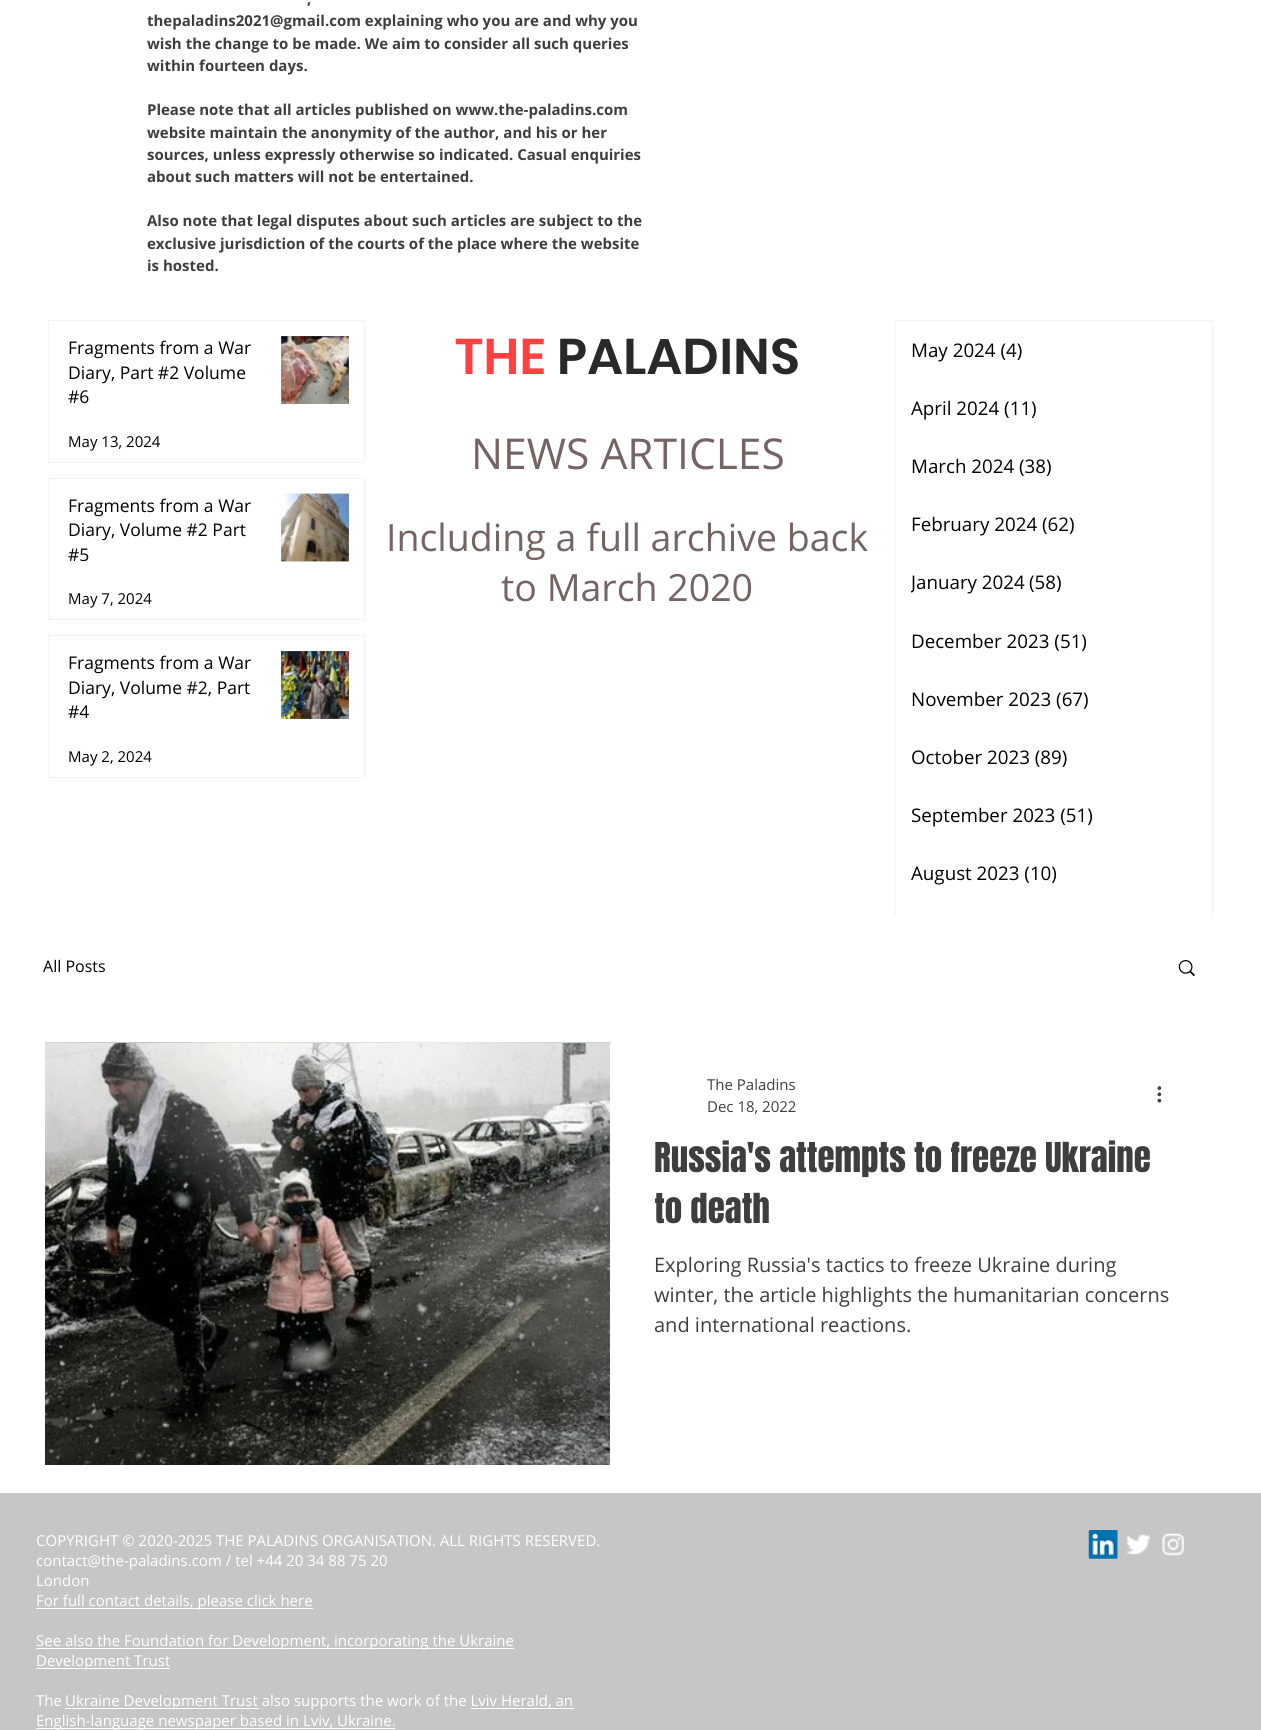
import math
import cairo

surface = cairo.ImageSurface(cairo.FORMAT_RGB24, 1261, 1730)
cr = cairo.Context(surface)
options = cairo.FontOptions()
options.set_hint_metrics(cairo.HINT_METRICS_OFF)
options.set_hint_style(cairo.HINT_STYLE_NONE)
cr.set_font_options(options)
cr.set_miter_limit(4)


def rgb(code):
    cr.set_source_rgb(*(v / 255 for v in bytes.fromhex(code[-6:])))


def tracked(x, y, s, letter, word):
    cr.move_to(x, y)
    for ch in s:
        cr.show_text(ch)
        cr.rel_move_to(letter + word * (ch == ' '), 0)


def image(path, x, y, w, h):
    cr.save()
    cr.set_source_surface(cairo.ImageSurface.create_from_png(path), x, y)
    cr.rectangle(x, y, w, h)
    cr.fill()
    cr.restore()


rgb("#ffffff")
cr.paint()
cr.rectangle(48.5, 320.5, 316, 142)
rgb("#f3f3f3")
cr.set_line_width(1)
cr.stroke()
image("img/1.png", 281, 336, 68, 68)
image("img/2.png", 281, 336, 68, 68)
cr.rectangle(48.5, 478.5, 316, 141)
cr.stroke()
image("img/3.png", 281, 493, 68, 69)
image("img/4.png", 281, 493, 68, 69)
cr.rectangle(48.5, 635.5, 316, 142)
cr.stroke()
image("img/5.png", 281, 651, 68, 68)
image("img/6.png", 281, 651, 68, 68)
cr.rectangle(895.5, 320.5, 317, 699)
cr.stroke()
rgb("#ffffff")
cr.rectangle(895, 916, 318, 104)
cr.fill()
image("img/7.png", 1178, 960, 17, 17)
image("img/8.png", 45, 1042, 566, 1)
image("img/9.png", 45, 1043, 565, 422)
image("img/10.png", 1157, 1086, 5, 17)
for x, y, w, h, color in [
    (0, 1493, 1261, 237, "#c6c6c6"),
    (36, 1608, 277, 1, "#ffffff"),
    (36, 1648, 478, 1, "#ffffff"),
    (36, 1668, 134, 1, "#ffffff"),
    (65, 1708, 194, 1, "#ffffff"),
    (471, 1708, 103, 1, "#ffffff"),
    (36, 1728, 359, 1, "#ffffff"),
]:
    rgb(color)
    cr.rectangle(x, y, w, h)
    cr.fill()
image("img/11.png", 1088, 1530, 30, 29)
image("img/12.png", 1126, 1534, 25, 21)
image("img/13.png", 1162, 1533, 23, 23)
cr.select_font_face("Open Sans", cairo.FONT_SLANT_NORMAL, cairo.FONT_WEIGHT_BOLD)
cr.set_font_size(15)
rgb("#3e3e3e")
for x, y, s in [
    (307, 4, ","),
    (147, 26, "thepaladins2021@gmail.com explaining who you are and why you"),
    (147, 49, "wish the change to be made. We aim to consider all such queries"),
    (147, 71, "within fourteen days."),
    (147, 115, "Please note that all articles published on www.the-paladins.com"),
    (147, 138, "website maintain the anonymity of the author, and his or her"),
    (147, 160, "sources, unless expressly otherwise so indicated. Casual enquiries"),
    (147, 182, "about such matters will not be entertained."),
    (147, 226, "Also note that legal disputes about such articles are subject to the"),
    (147, 249, "exclusive jurisdiction of the courts of the place where the website"),
    (147, 271, "is hosted."),
]:
    cr.move_to(x, y)
    cr.show_text(s)
cr.select_font_face("Open Sans")
cr.set_font_size(17.5)
rgb("#000000")
for x, y, s in [
    (68, 354, "Fragments from a War"),
    (68, 379, "Diary, Part #2 Volume"),
    (68, 403, "#6"),
]:
    cr.move_to(x, y)
    cr.show_text(s)
cr.set_font_size(15)
cr.move_to(68, 447)
cr.show_text("May 13, 2024")
cr.set_font_size(17.5)
for x, y, s in [
    (68, 512, "Fragments from a War"),
    (68, 536, "Diary, Volume #2 Part"),
    (68, 561, "#5"),
]:
    cr.move_to(x, y)
    cr.show_text(s)
cr.set_font_size(15)
cr.move_to(68, 604)
cr.show_text("May 7, 2024")
cr.set_font_size(17.5)
for x, y, s in [
    (68, 669, "Fragments from a War"),
    (68, 694, "Diary, Volume #2, Part"),
    (68, 718, "#4"),
]:
    cr.move_to(x, y)
    cr.show_text(s)
cr.set_font_size(15)
cr.move_to(68, 762)
cr.show_text("May 2, 2024")
cr.select_font_face("Poppins SemiBold")
cr.set_font_size(50)
rgb("#ff4040")
tracked(455, 374, "THE", 0.5, 0)
rgb("#292929")
tracked(557, 374, "PALADINS", 0.5, 0)
cr.select_font_face("Open Sans")
cr.set_font_size(42.5)
rgb("#756464")
cr.move_to(471, 469)
cr.show_text("NEWS ARTICLES")
cr.set_font_size(37.5)
cr.move_to(386, 551)
cr.show_text("Including a full archive back")
cr.move_to(501, 601)
cr.show_text("to March 2020")
cr.set_font_size(18.75)
rgb("#000000")
for x, y, s in [
    (911, 357, "May 2024 (4)"),
    (911, 415, "April 2024 (11)"),
    (911, 473, "March 2024 (38)"),
    (911, 531, "February 2024 (62)"),
]:
    cr.move_to(x, y)
    cr.show_text(s)
cr.save()
cr.rectangle(911, 569, 150, 27)
cr.clip()
cr.move_to(911, 589)
cr.show_text("January 2024")
cr.restore()
for x, y, s in [
    (1029, 589, "(58)"),
    (911, 648, "December 2023 (51)"),
    (911, 706, "November 2023 (67)"),
    (911, 764, "October 2023 (89)"),
    (911, 822, "September 2023 (51)"),
    (911, 880, "August 2023 (10)"),
]:
    cr.move_to(x, y)
    cr.show_text(s)
cr.set_font_size(16)
cr.move_to(43, 972)
cr.show_text("All Posts")
cr.set_font_size(15)
rgb("#3e3e3e")
cr.move_to(707, 1090)
cr.show_text("The Paladins")
cr.move_to(707, 1112)
cr.show_text("Dec 18, 2022")
cr.select_font_face("Anton")
cr.set_font_size(35)
cr.move_to(654, 1172)
cr.show_text("Russia's attempts to freeze Ukraine")
cr.save()
cr.rectangle(655, 1133, 518, 102)
cr.clip()
cr.move_to(654, 1223)
cr.show_text("to death")
cr.restore()
cr.select_font_face("Open Sans")
cr.set_font_size(20)
for x, y, s in [
    (654, 1272, "Exploring Russia's tactics to freeze Ukraine during"),
    (654, 1302, "winter, the article highlights the humanitarian concerns"),
    (654, 1332, "and international reactions."),
]:
    cr.move_to(x, y)
    cr.show_text(s)
cr.set_font_size(15)
rgb("#ffffff")
for x, y, s in [
    (36, 1546, "COPYRIGHT © 2020-2025 THE PALADINS ORGANISATION. ALL RIGHTS RESERVED."),
    (36, 1566, "contact@the-paladins.com / tel +44 20 34 88 75 20"),
    (36, 1586, "London"),
    (36, 1606, "For full contact details, please click here"),
    (36, 1646, "See also the Foundation for Development, incorporating the Ukraine"),
    (36, 1666, "Development Trust"),
    (36, 1706, "The"),
    (65, 1706, "Ukraine Development Trust also supports the work of the Lviv Herald, an"),
    (36, 1726, "English-language newspaper based in Lviv, Ukraine."),
]:
    cr.move_to(x, y)
    cr.show_text(s)
surface.write_to_png("page.png")
